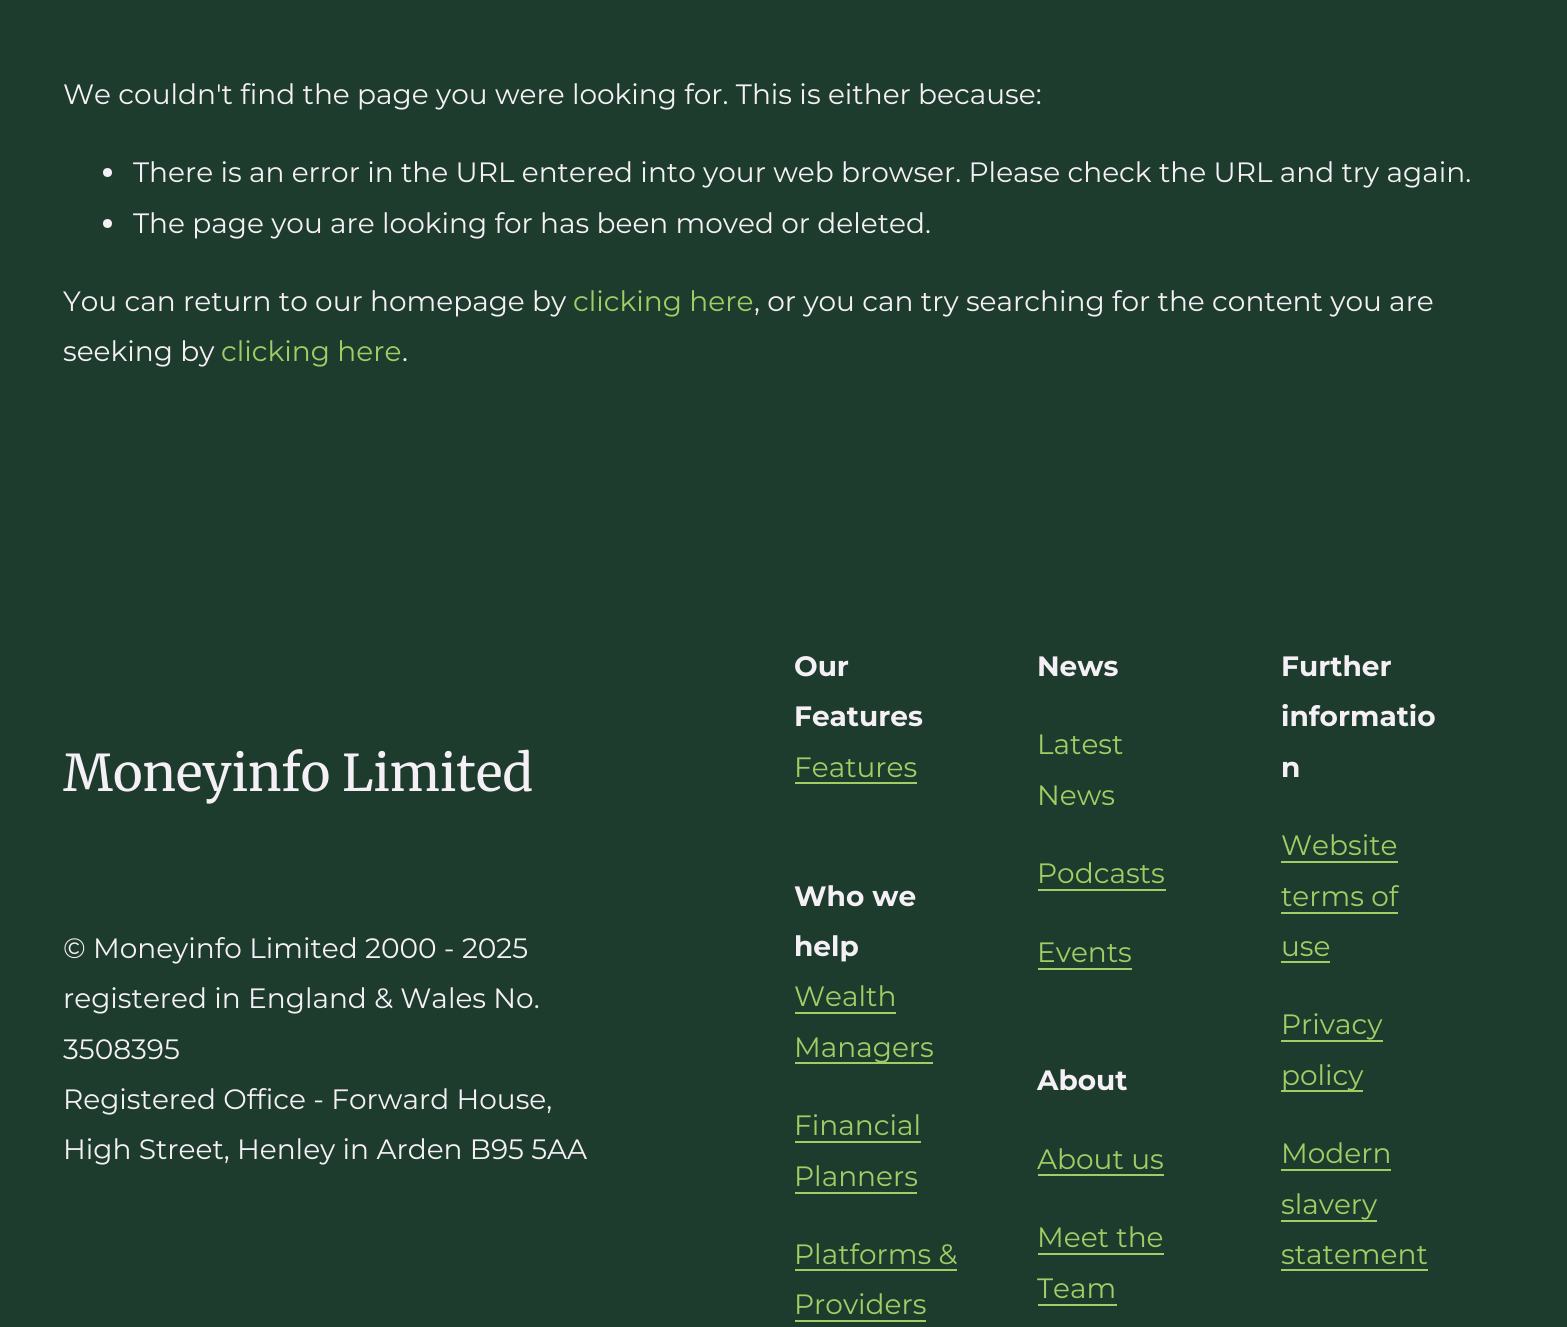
import math
import cairo

surface = cairo.ImageSurface(cairo.FORMAT_RGB24, 1567, 1327)
cr = cairo.Context(surface)
options = cairo.FontOptions()
options.set_hint_metrics(cairo.HINT_METRICS_OFF)
options.set_hint_style(cairo.HINT_STYLE_NONE)
cr.set_font_options(options)
cr.set_miter_limit(4)


def rgb(code):
    cr.set_source_rgb(*(v / 255 for v in bytes.fromhex(code[-6:])))


rgb("#1e3c2d")
cr.paint()
rgb("#f5f0f5")
cr.arc(107.5, 172.5, 4.5, 0, 2 * math.pi)
cr.fill()
cr.arc(107.5, 223.5, 4.5, 0, 2 * math.pi)
cr.fill()
for x, y, w, h, color in [
    (795, 782, 122, 2, "#a0cd64"),
    (795, 1012, 101, 2, "#a0cd64"),
    (795, 1062, 138, 2, "#a0cd64"),
    (795, 1141, 126, 2, "#a0cd64"),
    (795, 1192, 122, 2, "#a0cd64"),
    (795, 1269, 162, 2, "#a0cd64"),
    (795, 1320, 131, 2, "#a0cd64"),
    (1038, 889, 128, 2, "#a0cd64"),
    (1038, 968, 94, 2, "#a0cd64"),
    (1038, 1174, 126, 2, "#a0cd64"),
    (1038, 1253, 126, 2, "#a0cd64"),
    (1038, 1304, 79, 2, "#a0cd64"),
    (1281, 861, 117, 2, "#a0cd64"),
    (1281, 912, 117, 2, "#a0cd64"),
    (1281, 961, 49, 2, "#a0cd64"),
    (1281, 1040, 102, 2, "#a0cd64"),
    (1281, 1090, 82, 2, "#a0cd64"),
    (1281, 1169, 110, 2, "#a0cd64"),
    (1281, 1220, 96, 2, "#a0cd64"),
    (1281, 1269, 147, 2, "#a0cd64"),
]:
    rgb(color)
    cr.rectangle(x, y, w, h)
    cr.fill()
cr.select_font_face("Montserrat")
cr.set_font_size(28)
rgb("#f5f0f5")
for x, y, s in [
    (63, 104, "We couldn't find the page you were looking for. This is either because:"),
    (133, 182, "There is an error in the URL entered into your web browser. Please check the URL and try again."),
    (133, 233, "The page you are looking for has been moved or deleted."),
    (63, 311, "You can return to our homepage by"),
]:
    cr.move_to(x, y)
    cr.show_text(s)
rgb("#a0cd64")
cr.move_to(573, 311)
cr.show_text("clicking here")
rgb("#f5f0f5")
cr.move_to(754, 311)
cr.show_text(", or you can try searching for the content you are")
cr.move_to(63, 361)
cr.show_text("seeking by")
rgb("#a0cd64")
cr.move_to(221, 361)
cr.show_text("clicking here")
rgb("#f5f0f5")
cr.move_to(402, 361)
cr.show_text(".")
cr.select_font_face("Merriweather")
cr.set_font_size(50.5)
cr.move_to(63, 791)
cr.show_text("Moneyinfo Limited")
cr.select_font_face("Montserrat", cairo.FONT_SLANT_NORMAL, cairo.FONT_WEIGHT_BOLD)
cr.set_font_size(28)
cr.move_to(794, 676)
cr.show_text("Our")
cr.move_to(794, 726)
cr.show_text("Features")
cr.select_font_face("Montserrat")
rgb("#a0cd64")
cr.move_to(794, 777)
cr.show_text("Features")
cr.select_font_face("Montserrat", cairo.FONT_SLANT_NORMAL, cairo.FONT_WEIGHT_BOLD)
rgb("#f5f0f5")
cr.move_to(794, 906)
cr.show_text("Who we")
cr.move_to(794, 956)
cr.show_text("help")
cr.select_font_face("Montserrat")
rgb("#a0cd64")
for x, y, s in [
    (794, 1006, "Wealth"),
    (794, 1057, "Managers"),
    (794, 1135, "Financial"),
    (794, 1186, "Planners"),
    (794, 1264, "Platforms &"),
    (794, 1314, "Providers"),
]:
    cr.move_to(x, y)
    cr.show_text(s)
cr.select_font_face("Montserrat", cairo.FONT_SLANT_NORMAL, cairo.FONT_WEIGHT_BOLD)
rgb("#f5f0f5")
cr.move_to(1037, 676)
cr.show_text("News")
cr.select_font_face("Montserrat")
rgb("#a0cd64")
for x, y, s in [
    (1037, 754, "Latest"),
    (1037, 805, "News"),
    (1037, 883, "Podcasts"),
    (1037, 962, "Events"),
]:
    cr.move_to(x, y)
    cr.show_text(s)
cr.select_font_face("Montserrat", cairo.FONT_SLANT_NORMAL, cairo.FONT_WEIGHT_BOLD)
rgb("#f5f0f5")
cr.move_to(1037, 1090)
cr.show_text("About")
cr.select_font_face("Montserrat")
rgb("#a0cd64")
for x, y, s in [
    (1037, 1169, "About us"),
    (1037, 1247, "Meet the"),
    (1037, 1298, "Team"),
]:
    cr.move_to(x, y)
    cr.show_text(s)
cr.select_font_face("Montserrat", cairo.FONT_SLANT_NORMAL, cairo.FONT_WEIGHT_BOLD)
rgb("#f5f0f5")
for x, y, s in [
    (1281, 676, "Further"),
    (1281, 726, "informatio"),
    (1281, 777, "n"),
]:
    cr.move_to(x, y)
    cr.show_text(s)
cr.select_font_face("Montserrat")
rgb("#a0cd64")
for x, y, s in [
    (1281, 855, "Website"),
    (1281, 906, "terms of"),
    (1281, 956, "use"),
    (1281, 1034, "Privacy"),
    (1281, 1085, "policy"),
    (1281, 1163, "Modern"),
    (1281, 1214, "slavery"),
    (1281, 1264, "statement"),
]:
    cr.move_to(x, y)
    cr.show_text(s)
rgb("#f5f0f5")
for x, y, s in [
    (63, 958, "© Moneyinfo Limited 2000 - 2025"),
    (63, 1008, "registered in England & Wales No."),
    (63, 1059, "3508395"),
    (63, 1109, "Registered Office - Forward House,"),
    (63, 1159, "High Street, Henley in Arden B95 5AA"),
]:
    cr.move_to(x, y)
    cr.show_text(s)
surface.write_to_png("page.png")
